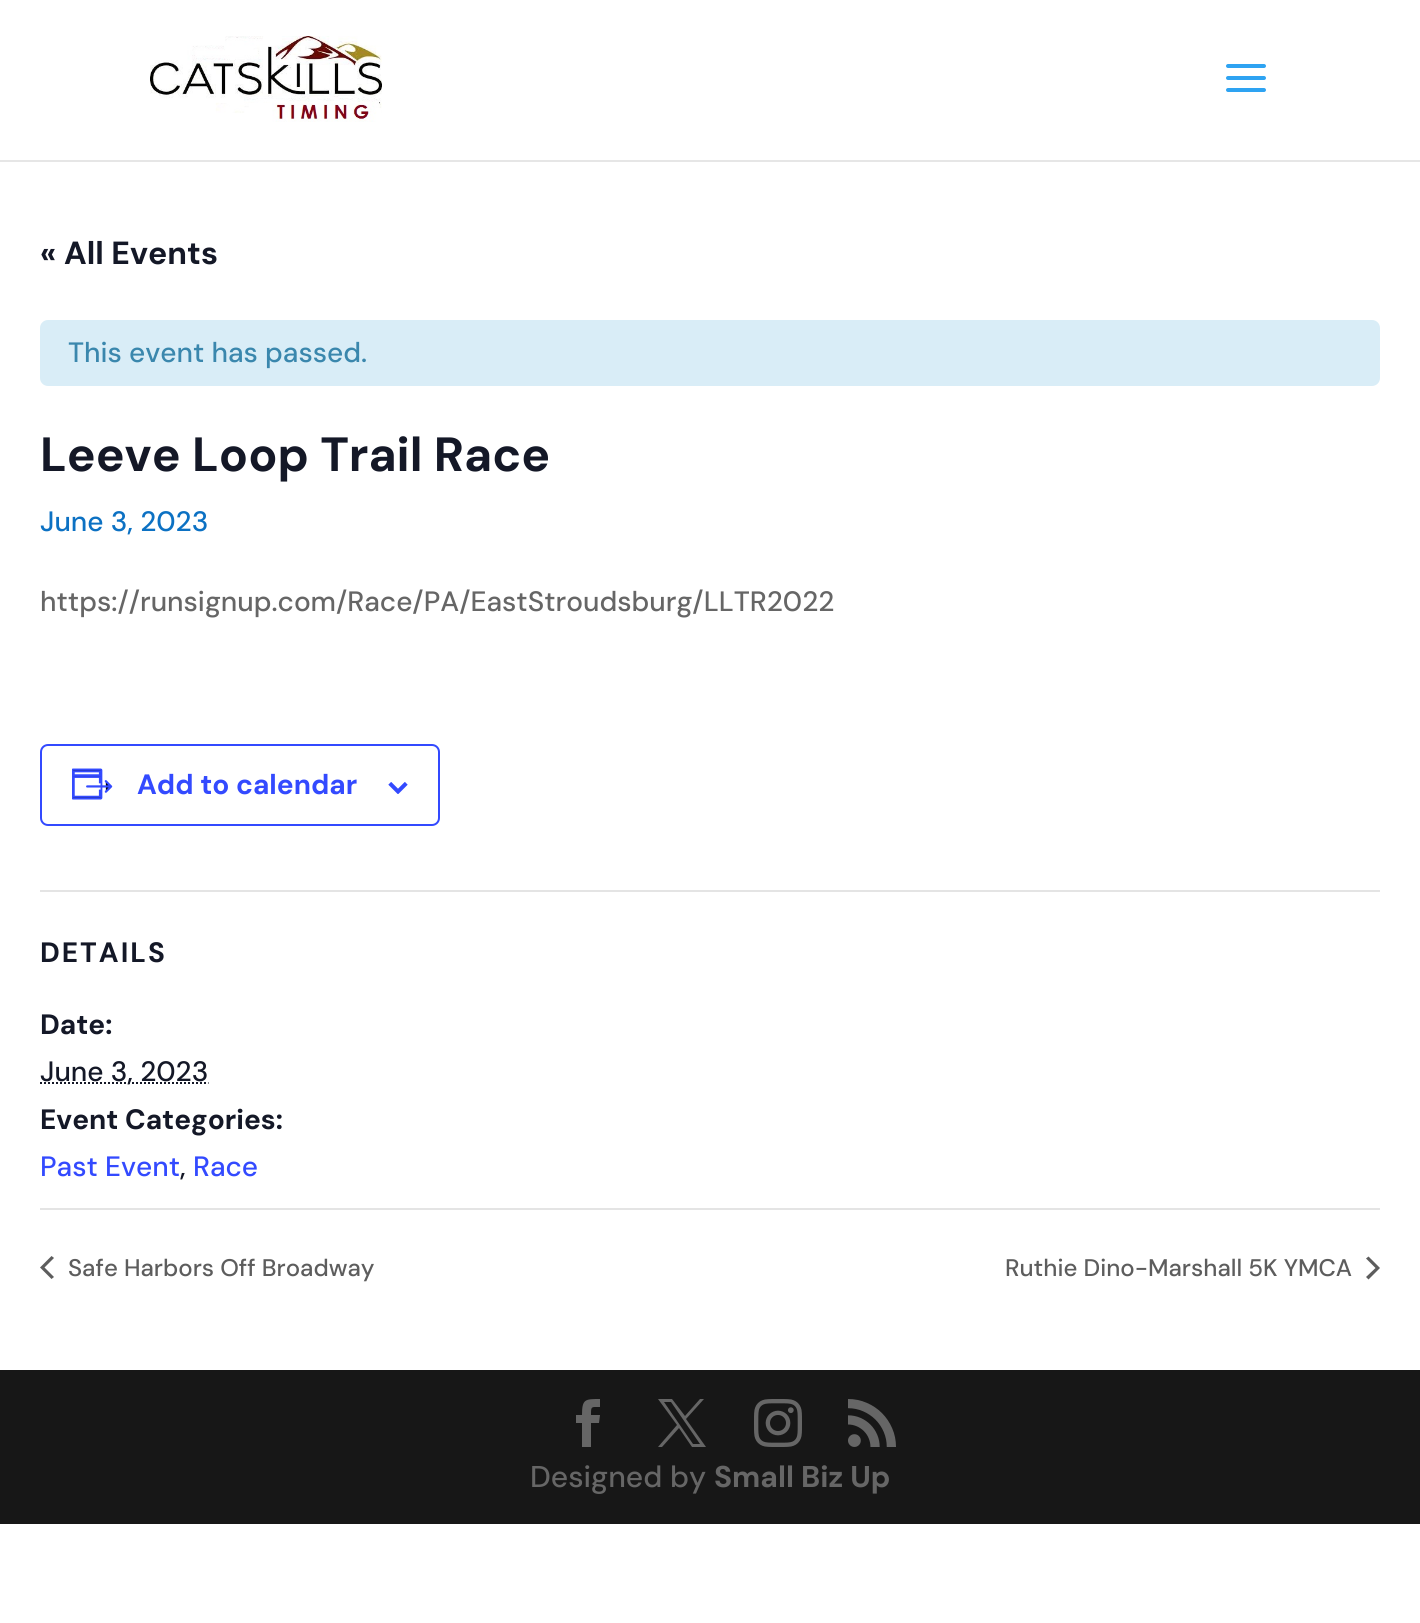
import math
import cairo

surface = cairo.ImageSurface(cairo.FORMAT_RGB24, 1420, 1623)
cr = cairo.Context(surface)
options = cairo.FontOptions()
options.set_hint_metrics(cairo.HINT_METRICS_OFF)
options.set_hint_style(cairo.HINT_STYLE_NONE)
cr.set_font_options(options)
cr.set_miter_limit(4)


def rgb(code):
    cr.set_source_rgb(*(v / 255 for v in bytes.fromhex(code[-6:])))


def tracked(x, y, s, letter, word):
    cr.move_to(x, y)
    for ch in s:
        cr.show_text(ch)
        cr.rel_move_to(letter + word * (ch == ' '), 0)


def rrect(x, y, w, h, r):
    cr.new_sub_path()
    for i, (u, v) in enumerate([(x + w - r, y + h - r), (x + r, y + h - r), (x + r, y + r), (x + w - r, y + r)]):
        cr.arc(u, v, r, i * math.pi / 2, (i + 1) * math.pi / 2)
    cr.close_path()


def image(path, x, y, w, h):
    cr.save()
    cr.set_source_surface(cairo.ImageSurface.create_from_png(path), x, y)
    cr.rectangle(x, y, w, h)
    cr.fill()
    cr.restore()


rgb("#ffffff")
cr.paint()
rgb("#e6e6e6")
cr.rectangle(0, 160, 1420, 2)
cr.fill()
image("img/1.png", 150, 36, 232, 86)
image("img/2.png", 1226, 64, 40, 28)
rgb("#d9edf7")
rrect(40, 320, 1340, 66, 8)
cr.fill()
rrect(41, 745, 398, 80, 7)
rgb("#334aff")
cr.stroke()
image("img/3.png", 72, 768, 41, 32)
image("img/4.png", 388, 782, 20, 12)
rgb("#e4e4e4")
cr.rectangle(40, 890, 1340, 2)
cr.fill()
cr.new_path()
cr.move_to(40, 1083)
cr.line_to(208.5, 1083)
rgb("#141827")
cr.set_dash([2, 2])
cr.stroke()
rgb("#e4e4e4")
cr.rectangle(40, 1208, 1340, 2)
cr.fill()
rgb("#5d5d5d")
cr.new_path()
cr.move_to(54, 1277)
cr.line_to(51.5, 1279)
cr.line_to(40, 1267.5)
cr.line_to(51.5, 1256)
cr.line_to(54, 1258)
cr.line_to(44.5, 1267.5)
cr.close_path()
cr.fill()
cr.new_path()
cr.move_to(1366, 1258.5)
cr.line_to(1368.5, 1256.5)
cr.line_to(1380, 1268)
cr.line_to(1368.5, 1279.5)
cr.line_to(1366, 1277)
cr.line_to(1375.5, 1268)
cr.close_path()
cr.fill()
rgb("#171717")
cr.rectangle(0, 1370, 1420, 154)
cr.fill()
rgb("#666666")
cr.new_path()
cr.move_to(582, 1447)
cr.line_to(591, 1447)
cr.line_to(591, 1423)
cr.line_to(599, 1423)
cr.line_to(600, 1415)
cr.line_to(591, 1415)
cr.curve_to(591, 1406, 591, 1407, 600, 1407)
cr.line_to(600, 1399)
cr.curve_to(585, 1399, 582, 1399, 582, 1415)
cr.line_to(576, 1415)
cr.line_to(576, 1423)
cr.line_to(582, 1423)
cr.close_path()
cr.fill()
cr.new_path()
cr.move_to(658, 1399)
cr.line_to(677, 1425)
cr.line_to(658, 1447)
cr.line_to(662, 1447)
cr.line_to(679, 1428)
cr.line_to(692, 1447)
cr.line_to(706, 1447)
cr.line_to(686, 1419)
cr.line_to(704, 1399)
cr.line_to(700, 1399)
cr.line_to(685, 1416)
cr.line_to(672, 1399)
cr.close_path()
cr.move_to(664, 1402)
cr.line_to(671, 1402)
cr.line_to(700, 1444)
cr.line_to(693, 1444)
cr.close_path()
cr.fill()
image("img/5.png", 754, 1399, 48, 48)
image("img/6.png", 848, 1399, 48, 48)
cr.select_font_face("DM Sans", cairo.FONT_SLANT_NORMAL, cairo.FONT_WEIGHT_BOLD)
cr.set_font_size(32)
rgb("#141827")
cr.move_to(40, 264)
cr.show_text("« All Events")
cr.select_font_face("DM Sans Medium")
cr.set_font_size(28)
rgb("#3a87ad")
cr.move_to(68, 362)
cr.show_text("This event has passed.")
cr.select_font_face("DM Sans", cairo.FONT_SLANT_NORMAL, cairo.FONT_WEIGHT_BOLD)
cr.set_font_size(48)
rgb("#141827")
cr.move_to(40, 471)
cr.show_text("Leeve Loop Trail Race")
cr.select_font_face("DM Sans Medium")
cr.set_font_size(28)
rgb("#0c71c3")
cr.move_to(40, 531)
cr.show_text("June 3, 2023")
rgb("#666666")
cr.move_to(40, 611)
cr.show_text("https://runsignup.com/Race/PA/EastStroudsburg/LLTR2022")
cr.select_font_face("DM Sans", cairo.FONT_SLANT_NORMAL, cairo.FONT_WEIGHT_BOLD)
rgb("#334aff")
cr.move_to(137, 794)
cr.show_text("Add to calendar")
rgb("#141827")
tracked(40, 962, "DETAILS", 2, 0)
cr.move_to(40, 1034)
cr.show_text("Date:")
cr.select_font_face("DM Sans Medium")
cr.move_to(40, 1081)
cr.show_text("June 3, 2023")
cr.select_font_face("DM Sans", cairo.FONT_SLANT_NORMAL, cairo.FONT_WEIGHT_BOLD)
cr.move_to(40, 1129)
cr.show_text("Event Categories:")
cr.select_font_face("DM Sans Medium")
rgb("#334aff")
cr.move_to(40, 1176)
cr.show_text("Past Event")
rgb("#141827")
cr.move_to(180, 1176)
cr.show_text(",")
rgb("#334aff")
cr.move_to(193, 1176)
cr.show_text("Race")
cr.set_font_size(24)
rgb("#5d5d5d")
cr.move_to(68, 1276)
cr.show_text("Safe Harbors Off Broadway")
cr.move_to(1005, 1276)
cr.show_text("Ruthie Dino-Marshall 5K YMCA")
cr.set_font_size(30)
rgb("#666666")
cr.move_to(530, 1487)
cr.show_text("Designed by")
cr.select_font_face("DM Sans", cairo.FONT_SLANT_NORMAL, cairo.FONT_WEIGHT_BOLD)
cr.move_to(714, 1487)
cr.show_text("Small Biz Up")
surface.write_to_png("page.png")
